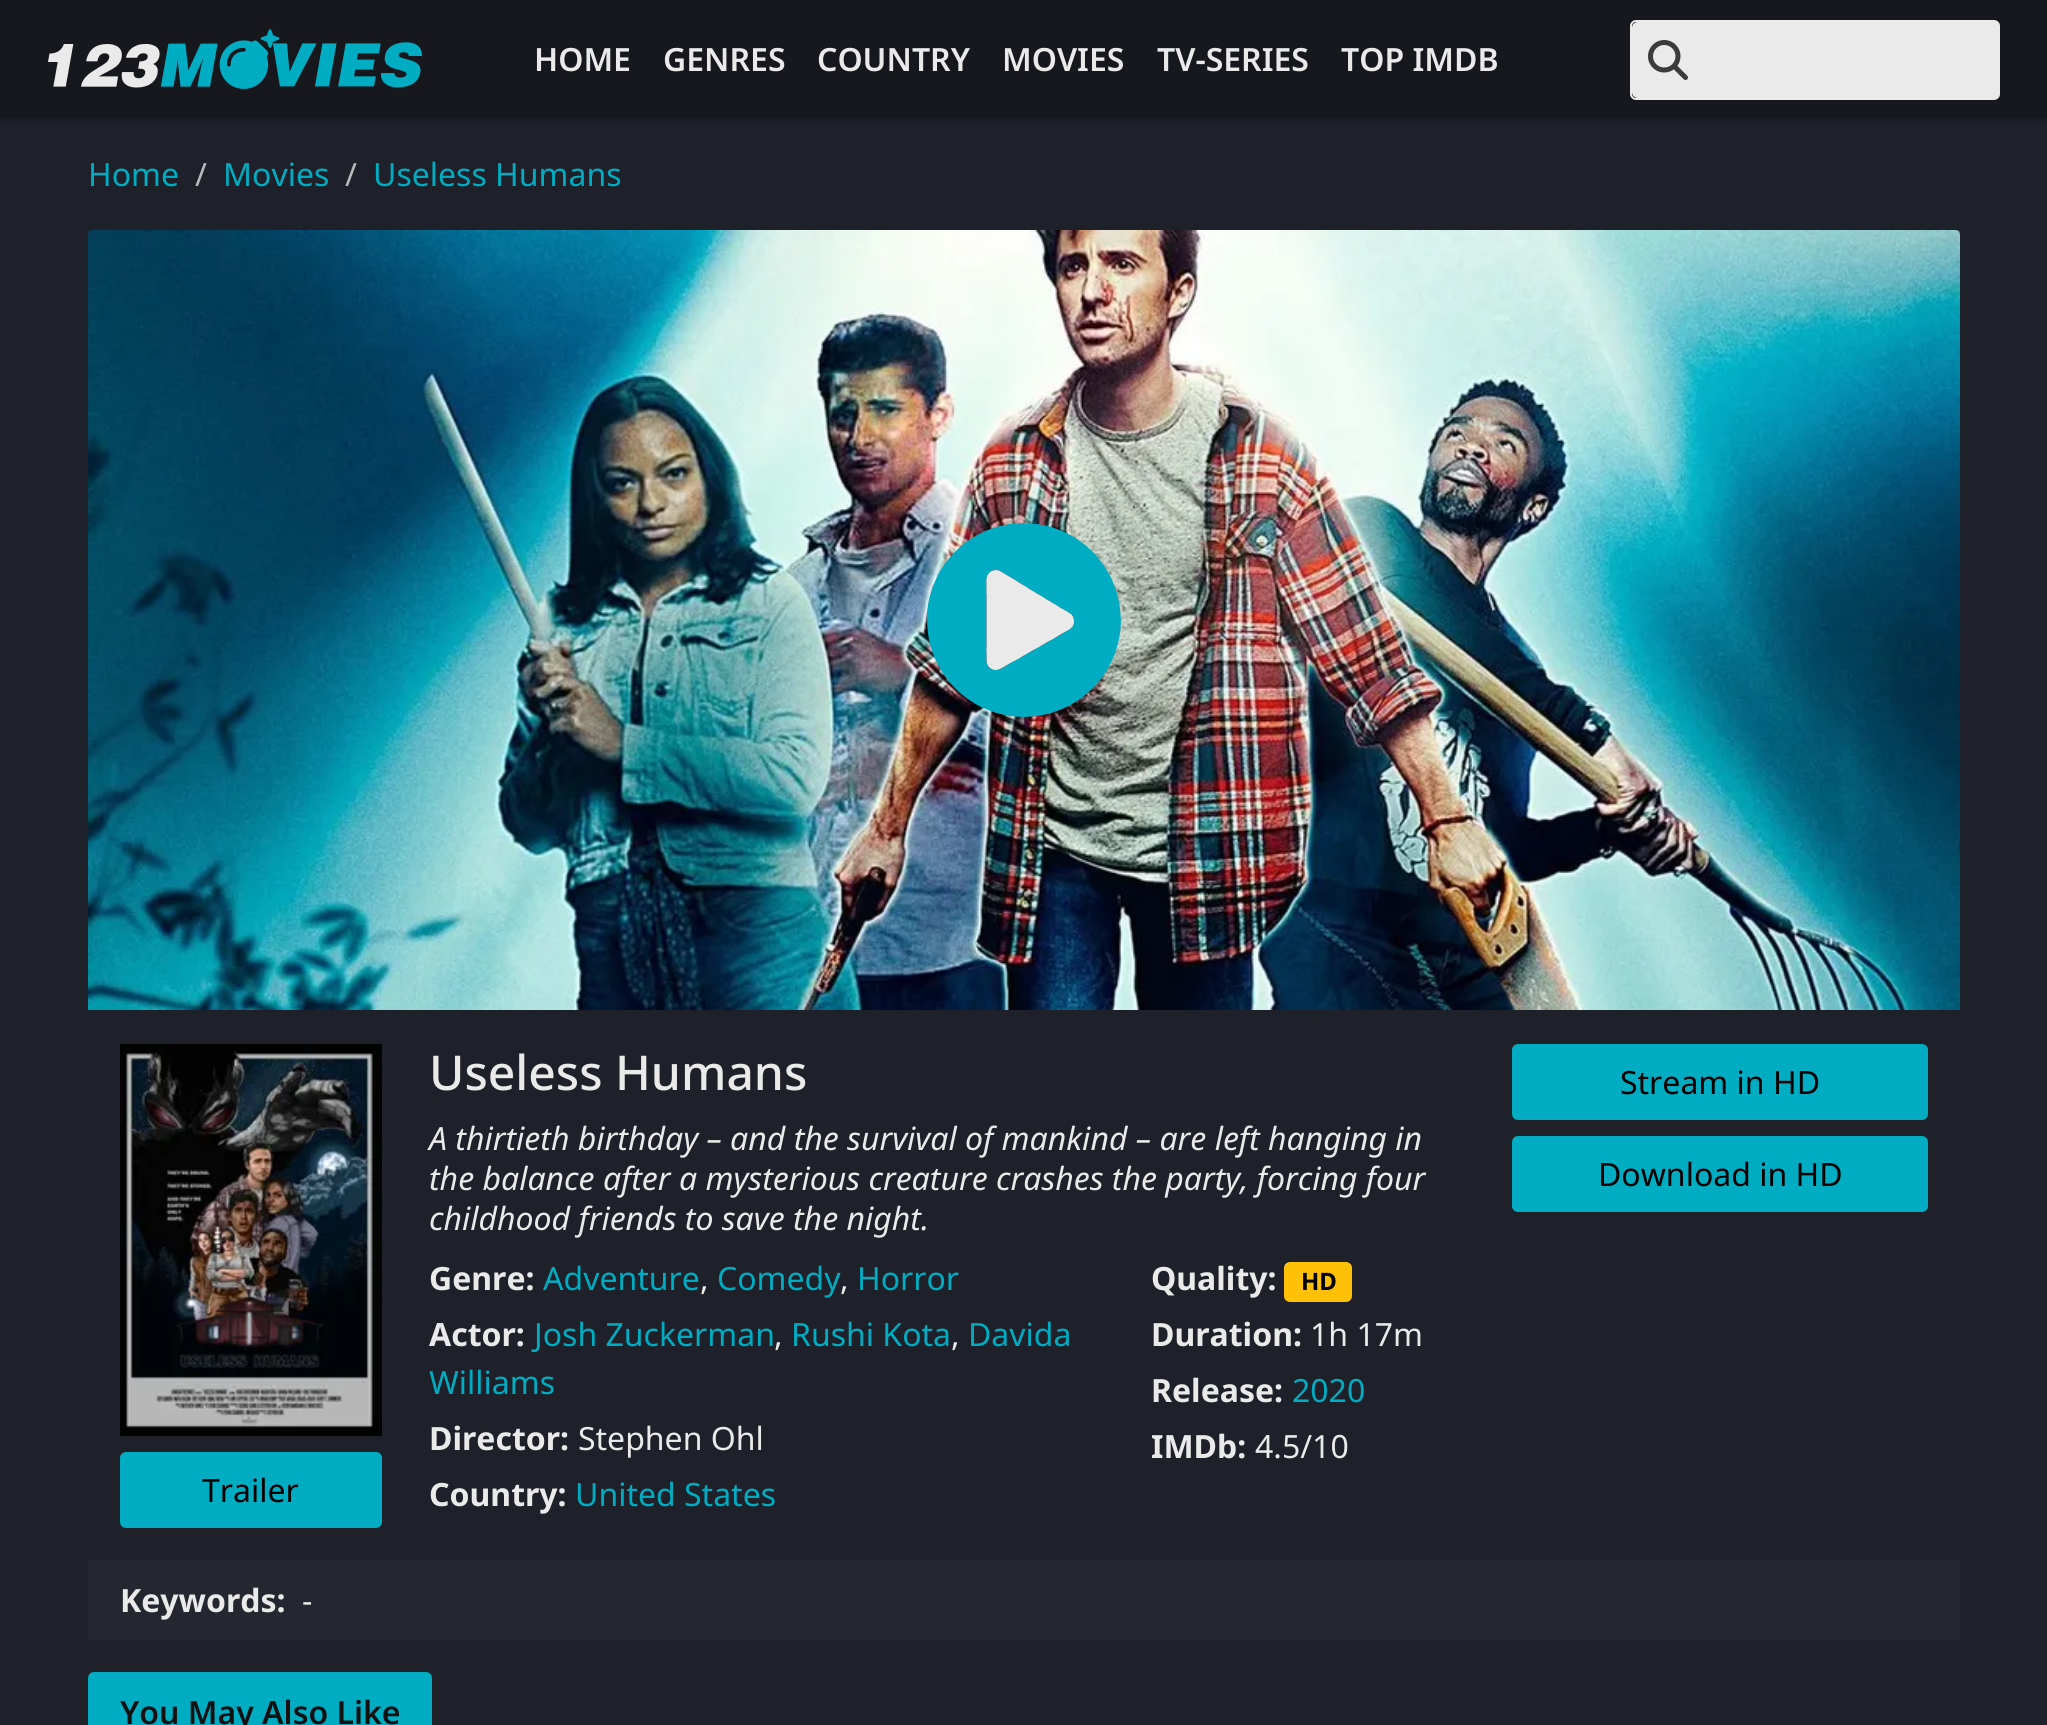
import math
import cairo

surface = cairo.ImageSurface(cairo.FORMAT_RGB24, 2047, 1725)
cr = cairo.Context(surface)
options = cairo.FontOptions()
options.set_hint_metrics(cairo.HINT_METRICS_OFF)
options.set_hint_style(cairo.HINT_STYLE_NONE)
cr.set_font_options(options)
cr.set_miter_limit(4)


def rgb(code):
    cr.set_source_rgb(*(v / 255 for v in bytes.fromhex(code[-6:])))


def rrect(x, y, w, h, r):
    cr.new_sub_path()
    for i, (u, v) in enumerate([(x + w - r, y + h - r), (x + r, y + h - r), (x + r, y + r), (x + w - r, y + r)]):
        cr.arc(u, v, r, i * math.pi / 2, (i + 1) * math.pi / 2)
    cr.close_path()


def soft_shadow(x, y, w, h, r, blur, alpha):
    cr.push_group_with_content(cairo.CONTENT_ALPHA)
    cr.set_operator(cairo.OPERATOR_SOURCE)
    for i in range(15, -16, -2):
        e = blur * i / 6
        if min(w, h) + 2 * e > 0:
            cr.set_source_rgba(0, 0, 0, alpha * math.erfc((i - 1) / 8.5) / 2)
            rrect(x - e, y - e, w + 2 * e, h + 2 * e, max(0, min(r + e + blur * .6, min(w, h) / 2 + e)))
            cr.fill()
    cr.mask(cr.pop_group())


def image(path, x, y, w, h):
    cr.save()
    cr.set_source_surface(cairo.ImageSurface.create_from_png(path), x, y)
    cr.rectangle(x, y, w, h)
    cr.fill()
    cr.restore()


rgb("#1e2129")
cr.paint()
rgb("#000000")
soft_shadow(0, 0, 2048, 118, 0, 5, 0.3)
rgb("#16181e")
cr.rectangle(0, 0, 2047, 118)
cr.fill()
image("img/1.png", 48, 29, 374, 60)
rrect(1631, 21, 368, 78, 5)
rgb("#eaeaea")
cr.stroke()
cr.new_path()
cr.move_to(1638, 22)
cr.line_to(1704, 22)
cr.line_to(1704, 98)
cr.line_to(1638, 98)
cr.curve_to(1634.5, 98, 1632, 95.5, 1632, 92)
cr.line_to(1632, 28)
cr.curve_to(1632, 24.5, 1634.5, 22, 1638, 22)
cr.close_path()
cr.fill()
image("img/2.png", 1648, 40, 40, 40)
cr.rectangle(1704, 22, 294, 76)
cr.fill()
cr.set_source_rgba(0.918, 0.918, 0.918, 0.03)
cr.rectangle(88, 230, 1872, 5)
cr.fill()
image("img/3.png", 88, 230, 1872, 780)
image("img/4.png", 927, 523, 194, 194)
rgb("#ffc107")
rrect(1284, 1262, 68, 40, 6)
cr.fill()
rgb("#00acc1")
rrect(1513, 1045, 414, 74, 5)
cr.fill_preserve()
cr.stroke()
rrect(1513, 1137, 414, 74, 5)
cr.fill_preserve()
cr.stroke()
image("img/5.png", 120, 1044, 262, 392)
rrect(121, 1453, 260, 74, 5)
cr.fill_preserve()
cr.stroke()
cr.set_source_rgba(0.918, 0.918, 0.918, 0.03)
cr.rectangle(88, 1560, 1872, 80)
cr.fill()
rgb("#00acc1")
rrect(88, 1672, 344, 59, 6)
cr.fill()
cr.select_font_face("Noto Sans SemiBold")
cr.set_font_size(32)
rgb("#eaeaea")
for x, y, s in [
    (534, 71, "HOME"),
    (663, 71, "GENRES"),
    (817, 71, "COUNTRY"),
    (1002, 71, "MOVIES"),
    (1157, 71, "TV-SERIES"),
    (1341, 71, "TOP IMDB"),
]:
    cr.move_to(x, y)
    cr.show_text(s)
cr.select_font_face("Noto Sans")
rgb("#00acc1")
cr.move_to(88, 186)
cr.show_text("Home")
rgb("#b8b9bb")
cr.move_to(195, 186)
cr.show_text("/")
rgb("#00acc1")
cr.move_to(223, 186)
cr.show_text("Movies")
rgb("#b8b9bb")
cr.move_to(345, 186)
cr.show_text("/")
rgb("#00acc1")
cr.move_to(373, 186)
cr.show_text("Useless Humans")
cr.select_font_face("Noto Sans Medium")
cr.set_font_size(48)
rgb("#eaeaea")
cr.move_to(429, 1090)
cr.show_text("Useless Humans")
cr.select_font_face("Noto Sans", cairo.FONT_SLANT_ITALIC)
cr.set_font_size(32)
for x, y, s in [
    (429, 1150, "A thirtieth birthday – and the survival of mankind – are left hanging in"),
    (429, 1190, "the balance after a mysterious creature crashes the party, forcing four"),
    (429, 1230, "childhood friends to save the night."),
]:
    cr.move_to(x, y)
    cr.show_text(s)
cr.select_font_face("Noto Sans", cairo.FONT_SLANT_NORMAL, cairo.FONT_WEIGHT_BOLD)
cr.move_to(429, 1290)
cr.show_text("Genre:")
cr.select_font_face("Noto Sans")
rgb("#00acc1")
cr.move_to(543, 1290)
cr.show_text("Adventure")
rgb("#eaeaea")
cr.move_to(700, 1290)
cr.show_text(",")
rgb("#00acc1")
cr.move_to(717, 1290)
cr.show_text("Comedy")
rgb("#eaeaea")
cr.move_to(840, 1290)
cr.show_text(",")
rgb("#00acc1")
cr.move_to(857, 1290)
cr.show_text("Horror")
cr.select_font_face("Noto Sans", cairo.FONT_SLANT_NORMAL, cairo.FONT_WEIGHT_BOLD)
rgb("#eaeaea")
cr.move_to(429, 1346)
cr.show_text("Actor:")
cr.select_font_face("Noto Sans")
rgb("#00acc1")
cr.move_to(534, 1346)
cr.show_text("Josh Zuckerman")
rgb("#eaeaea")
cr.move_to(774, 1346)
cr.show_text(",")
rgb("#00acc1")
cr.move_to(791, 1346)
cr.show_text("Rushi Kota")
rgb("#eaeaea")
cr.move_to(951, 1346)
cr.show_text(",")
rgb("#00acc1")
cr.move_to(968, 1346)
cr.show_text("Davida")
cr.move_to(429, 1394)
cr.show_text("Williams")
cr.select_font_face("Noto Sans", cairo.FONT_SLANT_NORMAL, cairo.FONT_WEIGHT_BOLD)
rgb("#eaeaea")
cr.move_to(429, 1450)
cr.show_text("Director:")
cr.select_font_face("Noto Sans")
cr.move_to(578, 1450)
cr.show_text("Stephen Ohl")
cr.select_font_face("Noto Sans", cairo.FONT_SLANT_NORMAL, cairo.FONT_WEIGHT_BOLD)
cr.move_to(429, 1506)
cr.show_text("Country:")
cr.select_font_face("Noto Sans")
rgb("#00acc1")
cr.move_to(575, 1506)
cr.show_text("United States")
cr.select_font_face("Noto Sans", cairo.FONT_SLANT_NORMAL, cairo.FONT_WEIGHT_BOLD)
rgb("#eaeaea")
cr.move_to(1151, 1290)
cr.show_text("Quality:")
cr.set_font_size(24)
rgb("#000000")
cr.move_to(1301, 1290)
cr.show_text("HD")
cr.set_font_size(32)
rgb("#eaeaea")
cr.move_to(1151, 1346)
cr.show_text("Duration:")
cr.select_font_face("Noto Sans")
cr.move_to(1310, 1346)
cr.show_text("1h 17m")
cr.select_font_face("Noto Sans", cairo.FONT_SLANT_NORMAL, cairo.FONT_WEIGHT_BOLD)
cr.move_to(1151, 1402)
cr.show_text("Release:")
cr.select_font_face("Noto Sans")
rgb("#00acc1")
cr.move_to(1292, 1402)
cr.show_text("2020")
cr.select_font_face("Noto Sans", cairo.FONT_SLANT_NORMAL, cairo.FONT_WEIGHT_BOLD)
rgb("#eaeaea")
cr.move_to(1151, 1458)
cr.show_text("IMDb:")
cr.select_font_face("Noto Sans")
cr.move_to(1255, 1458)
cr.show_text("4.5/10")
rgb("#000000")
for x, y, s in [
    (1620, 1094, "Stream in HD"),
    (1598, 1186, "Download in HD"),
    (202, 1502, "Trailer"),
]:
    cr.move_to(x, y)
    cr.show_text(s)
cr.select_font_face("Noto Sans", cairo.FONT_SLANT_NORMAL, cairo.FONT_WEIGHT_BOLD)
rgb("#eaeaea")
cr.move_to(120, 1612)
cr.show_text("Keywords:")
cr.select_font_face("Noto Sans")
cr.move_to(302, 1612)
cr.show_text("-")
cr.select_font_face("Noto Sans SemiBold")
rgb("#111111")
cr.move_to(120, 1724)
cr.show_text("You May Also Like")
surface.write_to_png("page.png")
